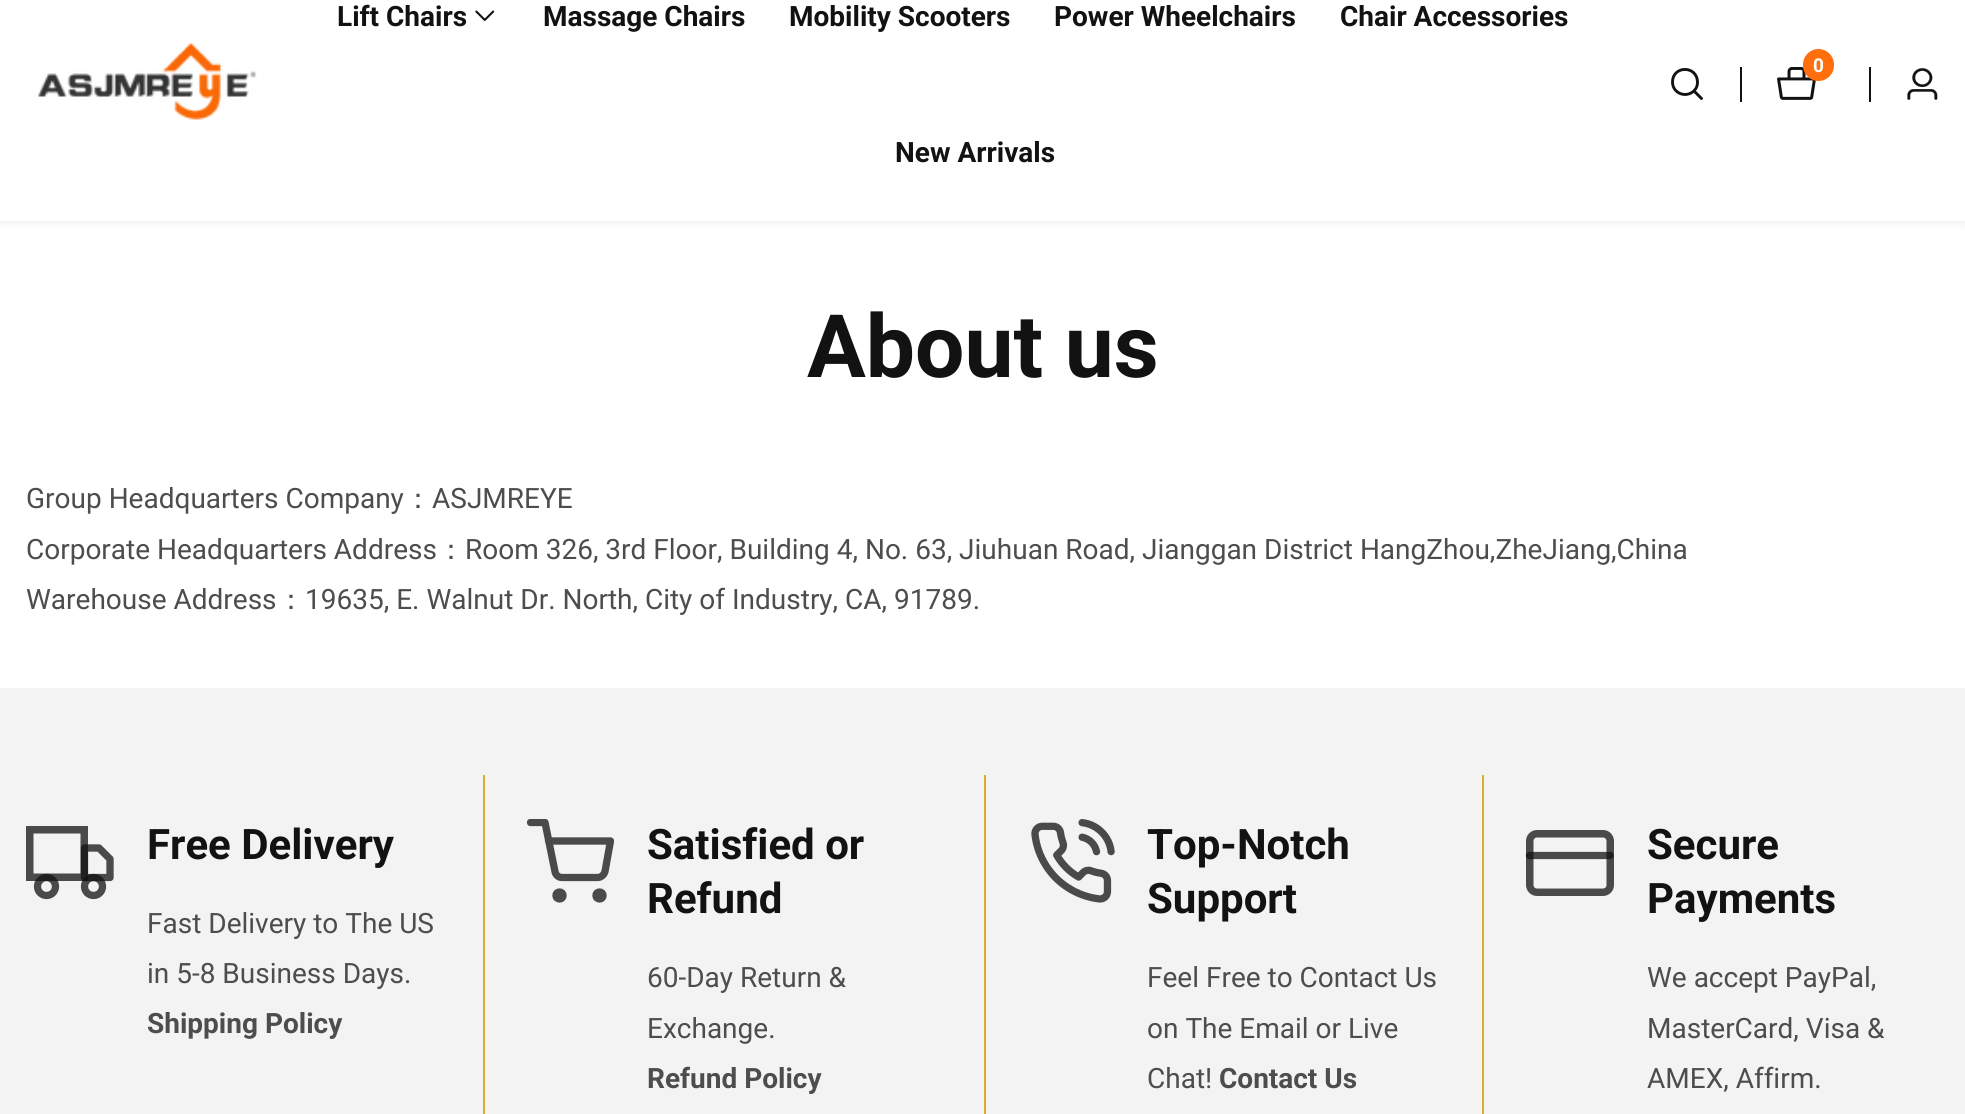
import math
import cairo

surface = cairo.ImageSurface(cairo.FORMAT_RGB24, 1965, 1114)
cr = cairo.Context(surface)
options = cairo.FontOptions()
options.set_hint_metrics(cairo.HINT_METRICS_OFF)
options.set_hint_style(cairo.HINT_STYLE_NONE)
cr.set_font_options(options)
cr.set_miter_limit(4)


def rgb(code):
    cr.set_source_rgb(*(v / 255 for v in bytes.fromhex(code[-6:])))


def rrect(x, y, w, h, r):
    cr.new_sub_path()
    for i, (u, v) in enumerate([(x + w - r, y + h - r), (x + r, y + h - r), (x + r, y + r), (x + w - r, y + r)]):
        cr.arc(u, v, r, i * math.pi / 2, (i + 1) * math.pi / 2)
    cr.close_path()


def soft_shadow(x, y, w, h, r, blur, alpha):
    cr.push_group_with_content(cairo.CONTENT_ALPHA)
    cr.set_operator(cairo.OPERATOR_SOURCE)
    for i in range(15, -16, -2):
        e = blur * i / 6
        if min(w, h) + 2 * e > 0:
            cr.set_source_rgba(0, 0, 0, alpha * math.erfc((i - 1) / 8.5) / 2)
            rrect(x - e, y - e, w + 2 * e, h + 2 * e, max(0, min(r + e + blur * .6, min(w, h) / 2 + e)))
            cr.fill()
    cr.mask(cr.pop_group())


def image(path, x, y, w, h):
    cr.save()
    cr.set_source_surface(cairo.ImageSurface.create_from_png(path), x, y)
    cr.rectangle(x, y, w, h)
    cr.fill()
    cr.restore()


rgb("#ffffff")
cr.paint()
rgb("#121212")
soft_shadow(0, -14, 1965, 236, 0, 4.5, 0.1)
rgb("#ffffff")
cr.rectangle(0, 0, 1965, 221)
cr.fill()
image("img/1.png", 38, 42, 219, 78)
image("img/2.png", 475, 10, 20, 11)
rgb("#121212")
cr.rectangle(1740, 67, 2, 35)
cr.fill()
image("img/3.png", 1777, 67, 39, 33)
rgb("#ff6f0e")
rrect(1803, 49, 31, 32, 15.5)
cr.fill()
cr.new_path()
cr.move_to(1694.5, 91.5)
cr.line_to(1701.5, 98.5)
cr.move_to(1672.5, 82)
cr.curve_to(1672.5, 94.5, 1688.5, 99, 1695.5, 89)
cr.curve_to(1697, 87, 1697.5, 84.5, 1697.5, 82)
cr.curve_to(1697, 65, 1672.5, 65.5, 1672.5, 82)
cr.close_path()
rgb("#121212")
cr.set_line_width(2.9)
cr.set_line_cap(cairo.LINE_CAP_ROUND)
cr.set_line_join(cairo.LINE_JOIN_ROUND)
cr.stroke()
cr.rectangle(1869, 67, 2, 35)
cr.fill()
image("img/4.png", 1907, 68, 31, 32)
rgb("#f3f3f3")
cr.rectangle(0, 688, 1965, 426)
cr.fill()
cr.rectangle(29.75, 829.75, 54.5, 47.5)
rgb("#4a4a4a")
cr.set_line_width(7.5)
cr.set_line_cap(cairo.LINE_CAP_BUTT)
cr.set_line_join(cairo.LINE_JOIN_MITER)
cr.stroke()
cr.new_path()
cr.move_to(84.5, 848)
cr.line_to(99, 848)
cr.line_to(110, 859)
cr.line_to(110, 877.5)
cr.line_to(84.5, 877.5)
cr.close_path()
cr.set_source_rgba(0.071, 0.071, 0.071, 0.75)
cr.set_line_width(7.3)
cr.set_line_cap(cairo.LINE_CAP_ROUND)
cr.set_line_join(cairo.LINE_JOIN_ROUND)
cr.stroke()
cr.arc(46.5, 886.5, 9, 0, 2 * math.pi)
cr.set_line_cap(cairo.LINE_CAP_BUTT)
cr.set_line_join(cairo.LINE_JOIN_MITER)
cr.stroke()
cr.arc(93.5, 886.5, 9, 0, 2 * math.pi)
cr.stroke()
rgb("#dcad2b")
cr.rectangle(483, 775, 2, 339)
cr.fill()
cr.save()
cr.rectangle(527, 819, 87, 88)
cr.clip()
cr.new_path()
cr.move_to(530.5, 822.5)
cr.line_to(545, 822.5)
cr.line_to(555, 871.5)
cr.curve_to(555.5, 875, 558.5, 877.5, 562, 877.5)
cr.line_to(597.5, 877.5)
cr.curve_to(601, 877.5, 604, 875, 605, 871.5)
cr.line_to(610.5, 841)
cr.line_to(548.5, 841)
rgb("#4a4a4a")
cr.set_line_cap(cairo.LINE_CAP_ROUND)
cr.set_line_join(cairo.LINE_JOIN_ROUND)
cr.stroke()
cr.restore()
cr.arc(559.5, 895.5, 3.5, 0, 2 * math.pi)
rgb("#4a4a4a")
cr.stroke()
cr.arc(599.5, 895.5, 3.5, 0, 2 * math.pi)
cr.stroke()
rgb("#dcad2b")
cr.rectangle(984, 775, 2, 339)
cr.fill()
image("img/5.png", 1031, 819, 84, 84)
cr.rectangle(1482, 775, 2, 339)
cr.fill()
rrect(1529.75, 833.75, 80.5, 58.5, 7.25)
rgb("#4a4a4a")
cr.set_line_width(7.5)
cr.stroke()
cr.new_path()
cr.move_to(1529.5, 855.5)
cr.line_to(1610, 855.5)
cr.set_source_rgba(0.071, 0.071, 0.071, 0.75)
cr.set_line_width(7.3)
cr.set_line_cap(cairo.LINE_CAP_ROUND)
cr.set_line_join(cairo.LINE_JOIN_ROUND)
cr.stroke()
cr.select_font_face("Roboto", cairo.FONT_SLANT_NORMAL, cairo.FONT_WEIGHT_BOLD)
cr.set_font_size(28)
rgb("#121212")
for x, y, s in [
    (337, 26, "Lift Chairs"),
    (543, 26, "Massage Chairs"),
    (789, 26, "Mobility Scooters"),
    (1054, 26, "Power Wheelchairs"),
    (1340, 26, "Chair Accessories"),
    (895, 162, "New Arrivals"),
]:
    cr.move_to(x, y)
    cr.show_text(s)
cr.set_font_size(19)
rgb("#ffffff")
cr.move_to(1813, 72)
cr.show_text("0")
cr.set_font_size(87.5)
rgb("#121212")
cr.move_to(807, 377)
cr.show_text("About us")
cr.select_font_face("Roboto")
cr.set_font_size(28)
rgb("#4d4d4d")
cr.move_to(26, 508)
cr.show_text("Group Headquarters Company")
cr.select_font_face("WenQuanYi Zen Hei Medium")
cr.move_to(404, 508)
cr.show_text("：")
cr.select_font_face("Roboto")
cr.move_to(432, 508)
cr.show_text("ASJMREYE")
cr.move_to(26, 559)
cr.show_text("Corporate Headquarters Address")
cr.select_font_face("WenQuanYi Zen Hei Medium")
cr.move_to(437, 559)
cr.show_text("：")
cr.select_font_face("Roboto")
cr.move_to(465, 559)
cr.show_text("Room 326, 3rd Floor, Building 4, No. 63, Jiuhuan Road, Jianggan District HangZhou,ZheJiang,China")
cr.move_to(26, 609)
cr.show_text("Warehouse Address")
cr.select_font_face("WenQuanYi Zen Hei Medium")
cr.move_to(277, 609)
cr.show_text("：")
cr.select_font_face("Roboto")
cr.move_to(305, 609)
cr.show_text("19635, E. Walnut Dr. North, City of Industry, CA, 91789.")
cr.select_font_face("Roboto", cairo.FONT_SLANT_NORMAL, cairo.FONT_WEIGHT_BOLD)
cr.set_font_size(42)
rgb("#121212")
cr.move_to(147, 859)
cr.show_text("Free Delivery")
cr.select_font_face("Roboto")
cr.set_font_size(28)
rgb("#4d4d4d")
cr.move_to(147, 933)
cr.show_text("Fast Delivery to The US")
cr.move_to(147, 983)
cr.show_text("in 5-8 Business Days.")
cr.select_font_face("Roboto", cairo.FONT_SLANT_NORMAL, cairo.FONT_WEIGHT_BOLD)
cr.move_to(147, 1033)
cr.show_text("Shipping Policy")
cr.set_font_size(42)
rgb("#121212")
cr.move_to(647, 859)
cr.show_text("Satisfied or")
cr.move_to(647, 913)
cr.show_text("Refund")
cr.select_font_face("Roboto")
cr.set_font_size(28)
rgb("#4d4d4d")
cr.move_to(647, 987)
cr.show_text("60-Day Return &")
cr.move_to(647, 1038)
cr.show_text("Exchange.")
cr.select_font_face("Roboto", cairo.FONT_SLANT_NORMAL, cairo.FONT_WEIGHT_BOLD)
cr.move_to(647, 1088)
cr.show_text("Refund Policy")
cr.set_font_size(42)
rgb("#121212")
cr.move_to(1147, 859)
cr.show_text("Top-Notch")
cr.move_to(1147, 913)
cr.show_text("Support")
cr.select_font_face("Roboto")
cr.set_font_size(28)
rgb("#4d4d4d")
for x, y, s in [
    (1147, 987, "Feel Free to Contact Us"),
    (1147, 1038, "on The Email or Live"),
    (1147, 1088, "Chat!"),
]:
    cr.move_to(x, y)
    cr.show_text(s)
cr.select_font_face("Roboto", cairo.FONT_SLANT_NORMAL, cairo.FONT_WEIGHT_BOLD)
cr.move_to(1219, 1088)
cr.show_text("Contact Us")
cr.set_font_size(42)
rgb("#121212")
cr.move_to(1647, 859)
cr.show_text("Secure")
cr.move_to(1647, 913)
cr.show_text("Payments")
cr.select_font_face("Roboto")
cr.set_font_size(28)
rgb("#4d4d4d")
for x, y, s in [
    (1647, 987, "We accept PayPal,"),
    (1647, 1038, "MasterCard, Visa &"),
    (1647, 1088, "AMEX, Affirm."),
]:
    cr.move_to(x, y)
    cr.show_text(s)
surface.write_to_png("page.png")
